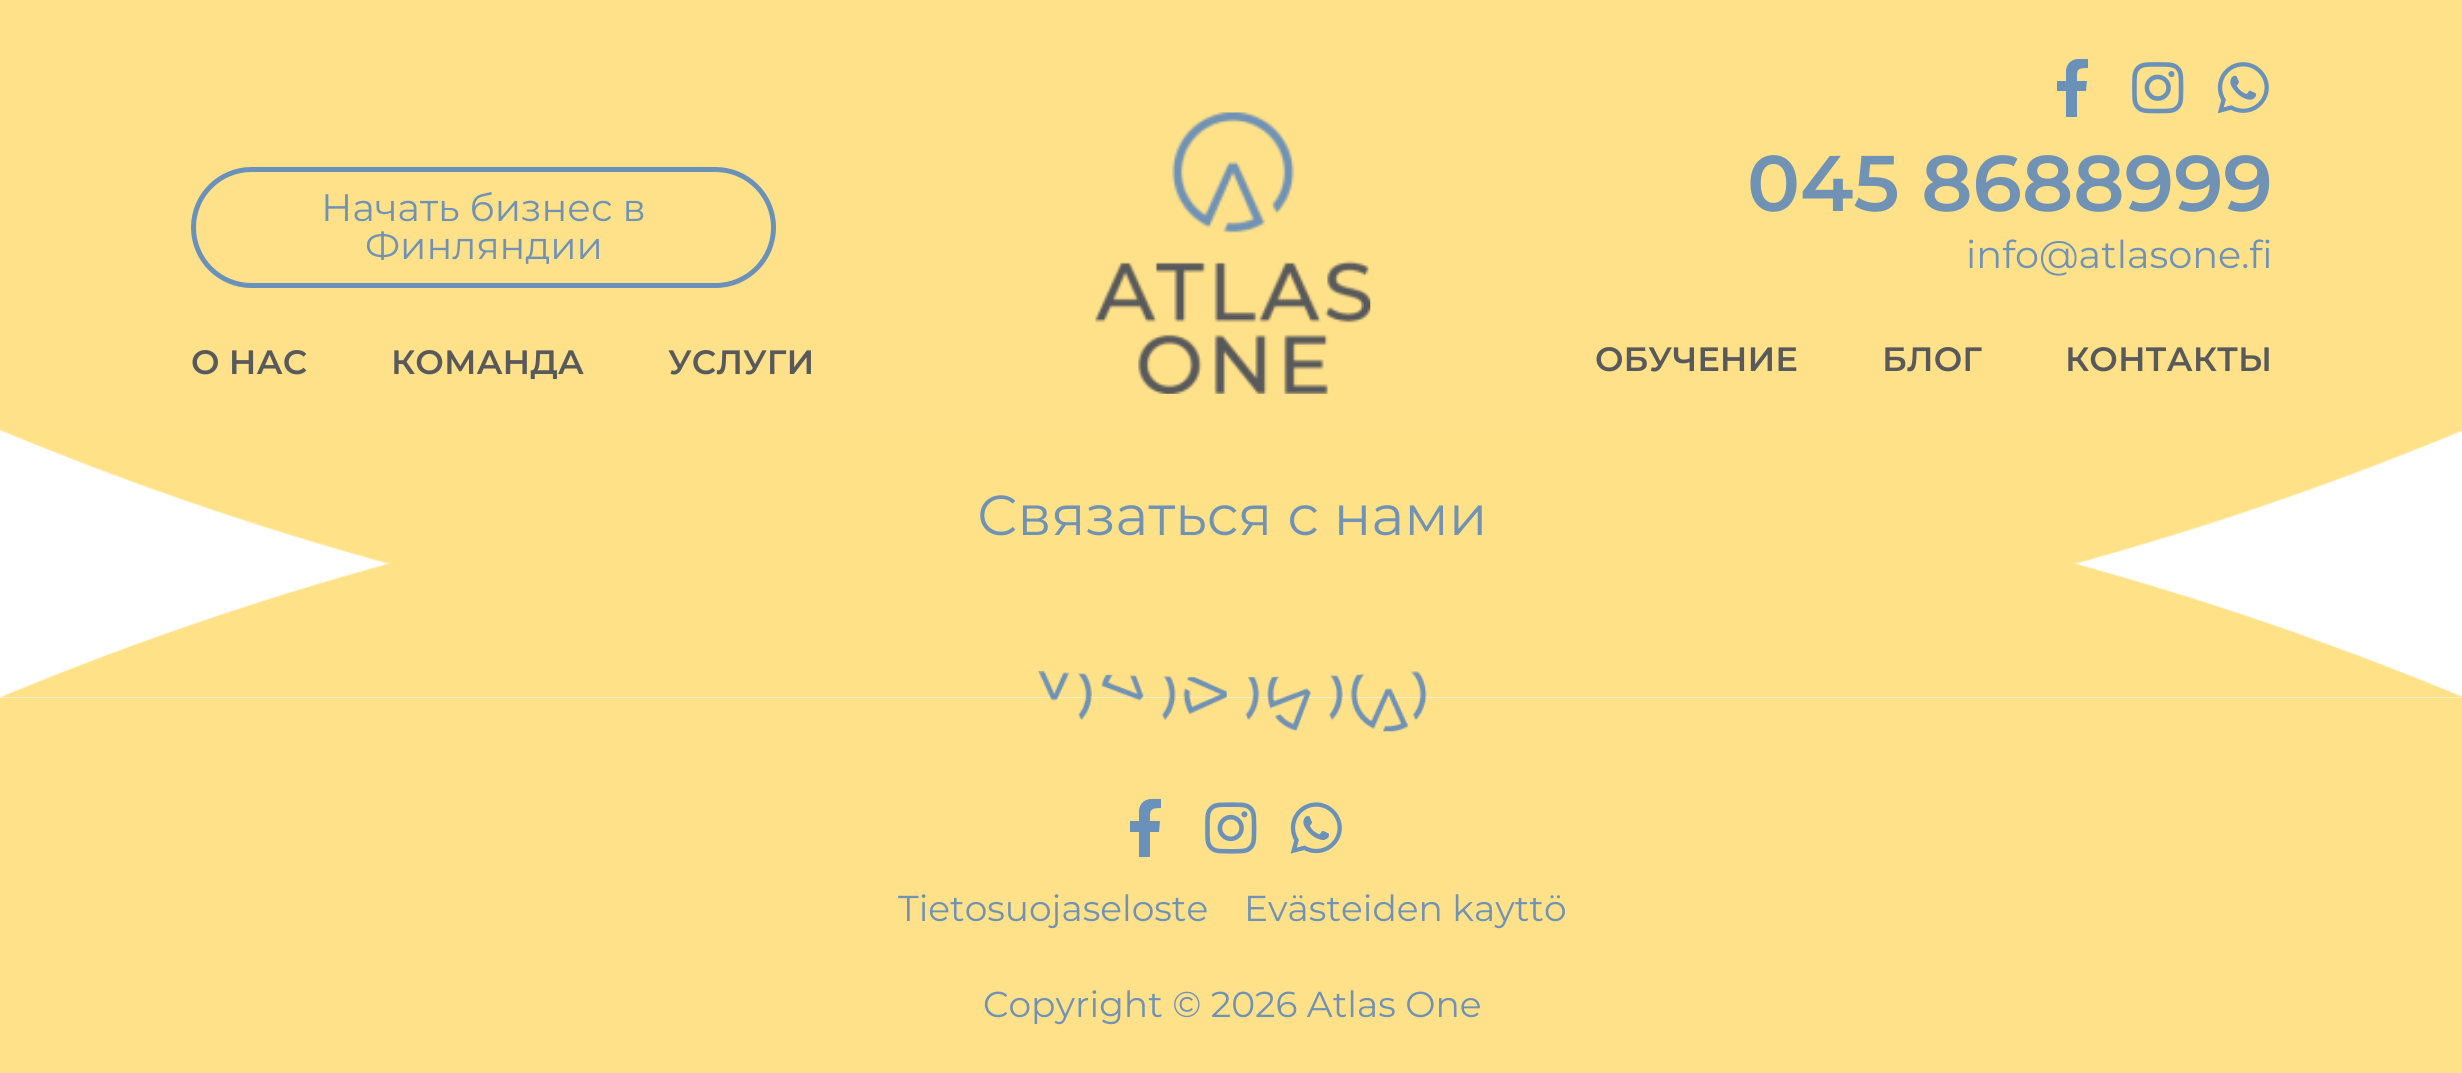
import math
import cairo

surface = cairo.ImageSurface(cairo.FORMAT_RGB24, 2462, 1073)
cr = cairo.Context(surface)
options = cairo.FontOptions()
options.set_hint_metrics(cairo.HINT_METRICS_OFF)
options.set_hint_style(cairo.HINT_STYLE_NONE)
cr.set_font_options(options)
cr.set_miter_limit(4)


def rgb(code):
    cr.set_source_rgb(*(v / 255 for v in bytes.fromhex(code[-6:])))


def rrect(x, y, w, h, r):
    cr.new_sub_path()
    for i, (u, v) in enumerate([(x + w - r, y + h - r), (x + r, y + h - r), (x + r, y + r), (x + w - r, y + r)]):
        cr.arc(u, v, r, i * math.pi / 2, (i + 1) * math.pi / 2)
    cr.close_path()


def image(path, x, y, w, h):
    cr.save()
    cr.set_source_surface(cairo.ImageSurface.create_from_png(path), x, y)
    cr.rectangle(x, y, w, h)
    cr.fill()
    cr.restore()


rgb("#ffffff")
cr.paint()
rgb("#ffe189")
cr.rectangle(0, 0, 2462, 430)
cr.fill()
rrect(193.5, 169.5, 580, 116, 58)
rgb("#6a91ba")
cr.set_line_width(5)
cr.stroke()
image("img/1.png", 1095, 112, 276, 282)
cr.save()
cr.rectangle(2043, 59, 59, 58)
cr.clip()
cr.new_path()
cr.move_to(2086, 91)
cr.line_to(2087, 81)
cr.line_to(2077, 81)
cr.curve_to(2077, 70, 2076, 68, 2088, 68)
cr.line_to(2088, 59)
cr.curve_to(2079, 58, 2068, 58, 2066, 70)
cr.line_to(2066, 81)
cr.line_to(2057, 81)
cr.line_to(2057, 91)
cr.line_to(2066, 91)
cr.line_to(2066, 117)
cr.line_to(2077, 117)
cr.line_to(2077, 91)
cr.close_path()
cr.fill()
cr.restore()
image("img/2.png", 2132, 62, 52, 52)
image("img/3.png", 2217, 62, 52, 52)
image("img/5.png", 0, 562, 2462, 136)
rgb("#ffe189")
cr.rectangle(0, 698, 2462, 375)
cr.fill()
image("img/6.png", 1037, 671, 390, 61)
image("img/4.png", 0, 430, 2462, 248)
cr.save()
cr.rectangle(1116, 799, 59, 58)
cr.clip()
rgb("#6a91ba")
cr.new_path()
cr.move_to(1159, 832)
cr.line_to(1160, 821)
cr.line_to(1150, 821)
cr.curve_to(1150, 811, 1149, 808, 1161, 808)
cr.line_to(1161, 799)
cr.curve_to(1152, 798, 1141, 798, 1139, 810)
cr.line_to(1139, 821)
cr.line_to(1130, 821)
cr.line_to(1130, 832)
cr.line_to(1139, 832)
cr.line_to(1139, 857)
cr.line_to(1150, 857)
cr.line_to(1150, 832)
cr.close_path()
cr.fill()
cr.restore()
image("img/7.png", 1205, 802, 52, 52)
image("img/8.png", 1290, 802, 52, 52)
cr.select_font_face("Montserrat")
cr.set_font_size(38.25)
rgb("#6f92b5")
cr.move_to(321, 221)
cr.show_text("Начать бизнес в")
cr.move_to(365, 259)
cr.show_text("Финляндии")
cr.select_font_face("Montserrat SemiBold")
cr.set_font_size(33.75)
rgb("#58595b")
for x, y, s in [
    (191, 374, "О НАС"),
    (391, 374, "КОМАНДА"),
    (668, 374, "УСЛУГИ"),
]:
    cr.move_to(x, y)
    cr.show_text(s)
cr.set_font_size(78.75)
rgb("#6f92b5")
cr.move_to(1747, 211)
cr.show_text("045 8688999")
cr.select_font_face("Montserrat")
cr.set_font_size(38.25)
cr.move_to(1966, 268)
cr.show_text("info@atlasone.fi")
cr.select_font_face("Montserrat SemiBold")
cr.set_font_size(33.75)
rgb("#58595b")
for x, y, s in [
    (1595, 371, "ОБУЧЕНИЕ"),
    (1882, 371, "БЛОГ"),
    (2065, 371, "КОНТАКТЫ"),
]:
    cr.move_to(x, y)
    cr.show_text(s)
cr.select_font_face("Montserrat")
cr.set_font_size(56.25)
rgb("#6f92b5")
cr.move_to(977, 535)
cr.show_text("Связаться с нами")
cr.set_font_size(36)
for x, y, s in [
    (898, 921, "Tietosuojaseloste"),
    (1244, 921, "Evästeiden kayttö"),
    (983, 1017, "Copyright © 2026 Atlas One"),
]:
    cr.move_to(x, y)
    cr.show_text(s)
surface.write_to_png("page.png")
